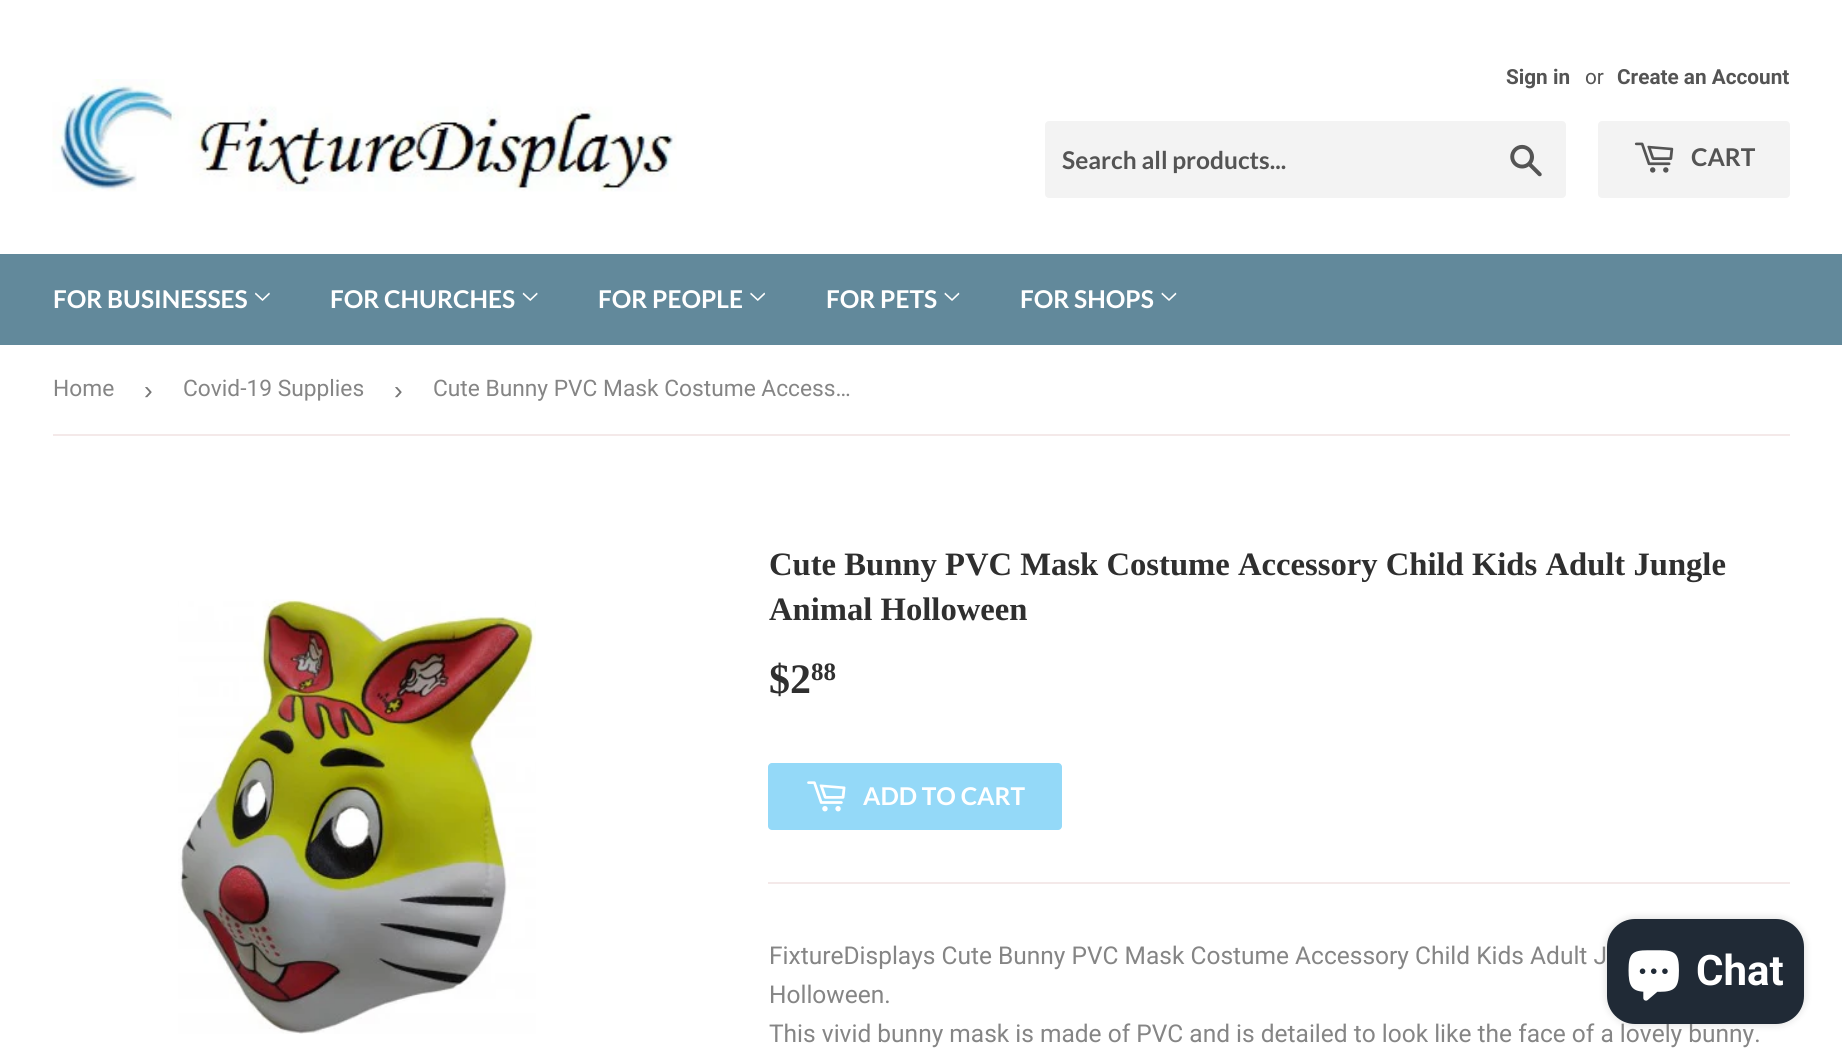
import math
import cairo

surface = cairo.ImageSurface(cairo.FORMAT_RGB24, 1842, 1059)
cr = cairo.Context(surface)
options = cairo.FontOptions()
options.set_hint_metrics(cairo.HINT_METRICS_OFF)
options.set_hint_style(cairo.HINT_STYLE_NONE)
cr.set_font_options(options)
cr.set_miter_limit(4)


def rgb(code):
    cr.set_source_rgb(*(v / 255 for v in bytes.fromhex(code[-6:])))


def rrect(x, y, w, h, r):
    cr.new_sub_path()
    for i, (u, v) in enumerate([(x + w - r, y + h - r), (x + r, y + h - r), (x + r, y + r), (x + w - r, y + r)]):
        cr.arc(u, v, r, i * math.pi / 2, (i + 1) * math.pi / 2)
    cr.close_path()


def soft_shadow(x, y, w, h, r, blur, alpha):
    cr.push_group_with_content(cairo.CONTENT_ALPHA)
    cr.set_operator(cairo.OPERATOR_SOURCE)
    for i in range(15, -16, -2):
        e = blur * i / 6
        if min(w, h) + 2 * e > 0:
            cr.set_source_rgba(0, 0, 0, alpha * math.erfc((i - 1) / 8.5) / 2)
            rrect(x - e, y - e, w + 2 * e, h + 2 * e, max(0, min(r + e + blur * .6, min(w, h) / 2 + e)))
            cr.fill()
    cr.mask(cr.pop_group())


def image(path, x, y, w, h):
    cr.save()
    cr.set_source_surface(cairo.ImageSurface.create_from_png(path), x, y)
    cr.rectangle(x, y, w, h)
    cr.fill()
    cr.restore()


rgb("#ffffff")
cr.paint()
image("img/1.png", 52, 79, 625, 113)
rgb("#f3f3f3")
rrect(1045, 121, 521, 77, 4)
cr.fill()
image("img/2.png", 1510, 144, 32, 33)
rrect(1598, 121, 192, 77, 4)
cr.fill()
image("img/3.png", 1634, 142, 40, 31)
rgb("#62899b")
cr.rectangle(0, 254, 1842, 91)
cr.fill()
image("img/4.png", 255, 292, 15, 9)
image("img/5.png", 522, 292, 16, 9)
image("img/6.png", 750, 292, 15, 9)
image("img/7.png", 944, 292, 16, 9)
image("img/7.png", 1161, 292, 16, 9)
rgb("#f4e9e9")
cr.rectangle(53, 434, 1737, 2)
cr.fill()
image("img/8.png", 178, 599, 358, 435)
rgb("#94d9f8")
rrect(768, 763, 294, 67, 4)
cr.fill()
image("img/9.png", 807, 781, 39, 31)
rgb("#f4e9e9")
cr.rectangle(768, 882, 1022, 2)
cr.fill()
rgb("#000000")
soft_shadow(1607, 919, 197, 105, 28, 4.5, 0.15)
cr.select_font_face("Roboto", cairo.FONT_SLANT_NORMAL, cairo.FONT_WEIGHT_BOLD)
cr.set_font_size(20.75)
rgb("#545454")
cr.move_to(1506, 84)
cr.show_text("Sign in")
cr.select_font_face("Roboto")
cr.move_to(1585, 84)
cr.show_text("or")
cr.select_font_face("Roboto", cairo.FONT_SLANT_NORMAL, cairo.FONT_WEIGHT_BOLD)
cr.move_to(1617, 84)
cr.show_text("Create an Account")
cr.select_font_face("Lato", cairo.FONT_SLANT_NORMAL, cairo.FONT_WEIGHT_BOLD)
cr.set_font_size(24.5)
cr.move_to(1062, 169)
cr.show_text("Search all products...")
cr.move_to(1691, 166)
cr.show_text("CART")
rgb("#ffffff")
for x, y, s in [
    (53, 308, "FOR BUSINESSES"),
    (330, 308, "FOR CHURCHES"),
    (598, 308, "FOR PEOPLE"),
    (826, 308, "FOR PETS"),
    (1020, 308, "FOR SHOPS"),
]:
    cr.move_to(x, y)
    cr.show_text(s)
cr.select_font_face("Roboto")
cr.set_font_size(22.75)
rgb("#858585")
cr.move_to(53, 396)
cr.show_text("Home")
cr.select_font_face("Liberation Sans")
cr.set_font_size(26)
rgb("#767676")
cr.move_to(144, 399)
cr.show_text("›")
cr.select_font_face("Roboto")
cr.set_font_size(22.75)
rgb("#858585")
cr.move_to(183, 396)
cr.show_text("Covid-19 Supplies")
cr.select_font_face("Liberation Sans")
cr.set_font_size(26)
rgb("#767676")
cr.move_to(394, 399)
cr.show_text("›")
cr.select_font_face("Roboto")
cr.set_font_size(22.75)
rgb("#858585")
cr.move_to(433, 396)
cr.show_text("Cute Bunny PVC Mask Costume Access…")
cr.select_font_face("Liberation Serif", cairo.FONT_SLANT_NORMAL, cairo.FONT_WEIGHT_BOLD)
cr.set_font_size(32.65)
rgb("#2f2f2f")
cr.move_to(769, 575)
cr.show_text("Cute Bunny PVC Mask Costume Accessory Child Kids Adult Jungle")
cr.move_to(769, 620)
cr.show_text("Animal Holloween")
cr.set_font_size(42)
cr.move_to(769, 693)
cr.show_text("$2")
cr.set_font_size(25)
cr.move_to(811, 680)
cr.show_text("88")
cr.select_font_face("Lato", cairo.FONT_SLANT_NORMAL, cairo.FONT_WEIGHT_BOLD)
cr.set_font_size(24.5)
rgb("#ffffff")
cr.move_to(863, 805)
cr.show_text("ADD TO CART")
cr.select_font_face("Roboto")
rgb("#858585")
for x, y, s in [
    (769, 964, "FixtureDisplays Cute Bunny PVC Mask Costume Accessory Child Kids Adult J"),
    (769, 1003, "Holloween."),
    (769, 1042, "This vivid bunny mask is made of PVC and is detailed to look like the face of a lovely bunny."),
]:
    cr.move_to(x, y)
    cr.show_text(s)
rgb("#202a36")
rrect(1607, 919, 197, 105, 28)
cr.fill()
image("img/10.png", 1628, 950, 51, 51)
cr.select_font_face("Roboto", cairo.FONT_SLANT_NORMAL, cairo.FONT_WEIGHT_BOLD)
cr.set_font_size(42)
rgb("#ffffff")
cr.move_to(1696, 985)
cr.show_text("Chat")
surface.write_to_png("page.png")
